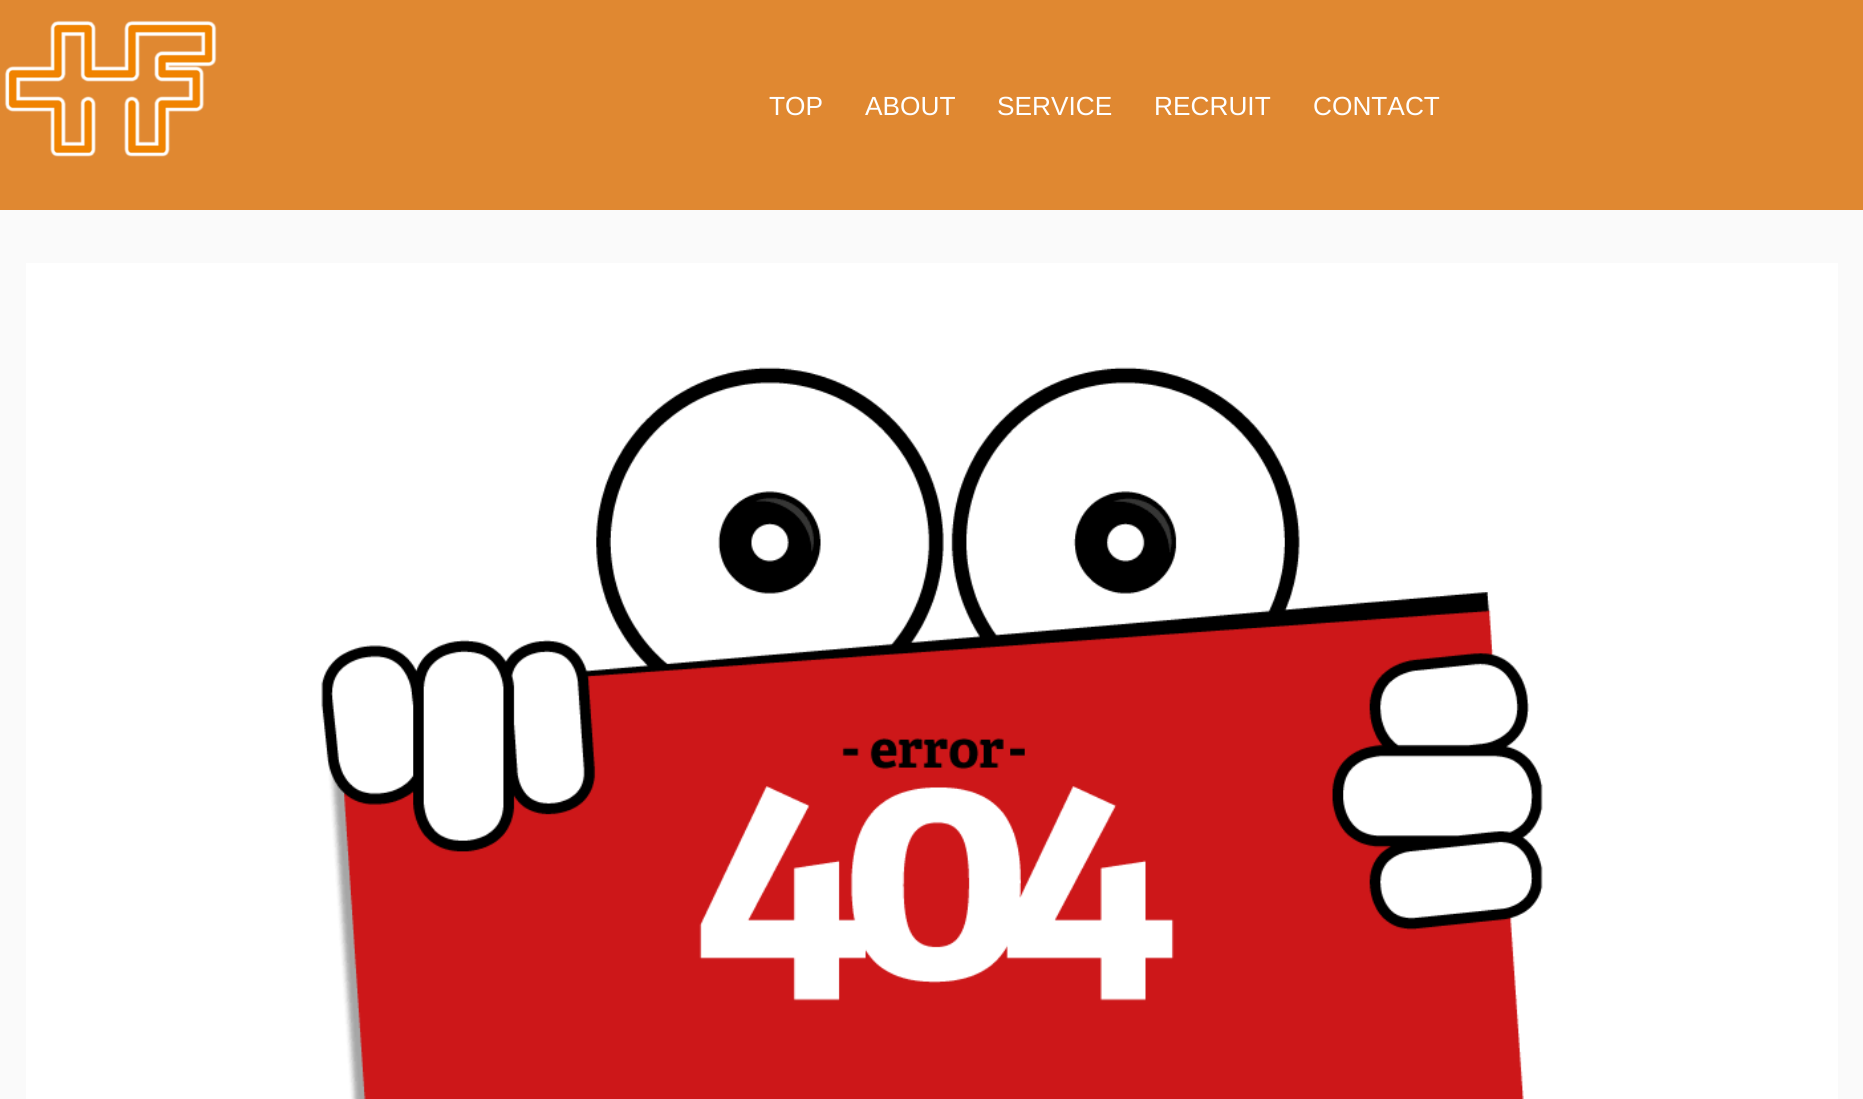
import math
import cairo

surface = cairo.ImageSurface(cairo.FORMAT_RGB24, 1863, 1099)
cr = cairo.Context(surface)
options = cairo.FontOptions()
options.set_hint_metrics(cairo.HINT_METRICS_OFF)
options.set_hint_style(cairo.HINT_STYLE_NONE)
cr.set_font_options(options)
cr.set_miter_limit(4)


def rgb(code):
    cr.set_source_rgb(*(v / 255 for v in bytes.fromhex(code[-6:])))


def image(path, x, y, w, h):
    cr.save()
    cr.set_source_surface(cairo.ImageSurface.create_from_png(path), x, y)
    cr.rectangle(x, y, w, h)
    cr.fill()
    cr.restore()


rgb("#fafafa")
cr.paint()
rgb("#e08831")
cr.rectangle(0, 0, 1863, 210)
cr.fill()
image("img/1.png", 4, 20, 213, 137)
rgb("#ffffff")
cr.rectangle(26, 263, 1812, 836)
cr.fill()
image("img/2.png", 321, 367, 1222, 732)
cr.select_font_face("Liberation Sans")
cr.set_font_size(26.25)
for x, y, s in [
    (769, 115, "TOP"),
    (865, 115, "ABOUT"),
    (997, 115, "SERVICE"),
    (1154, 115, "RECRUIT"),
    (1313, 115, "CONTACT"),
]:
    cr.move_to(x, y)
    cr.show_text(s)
surface.write_to_png("page.png")
